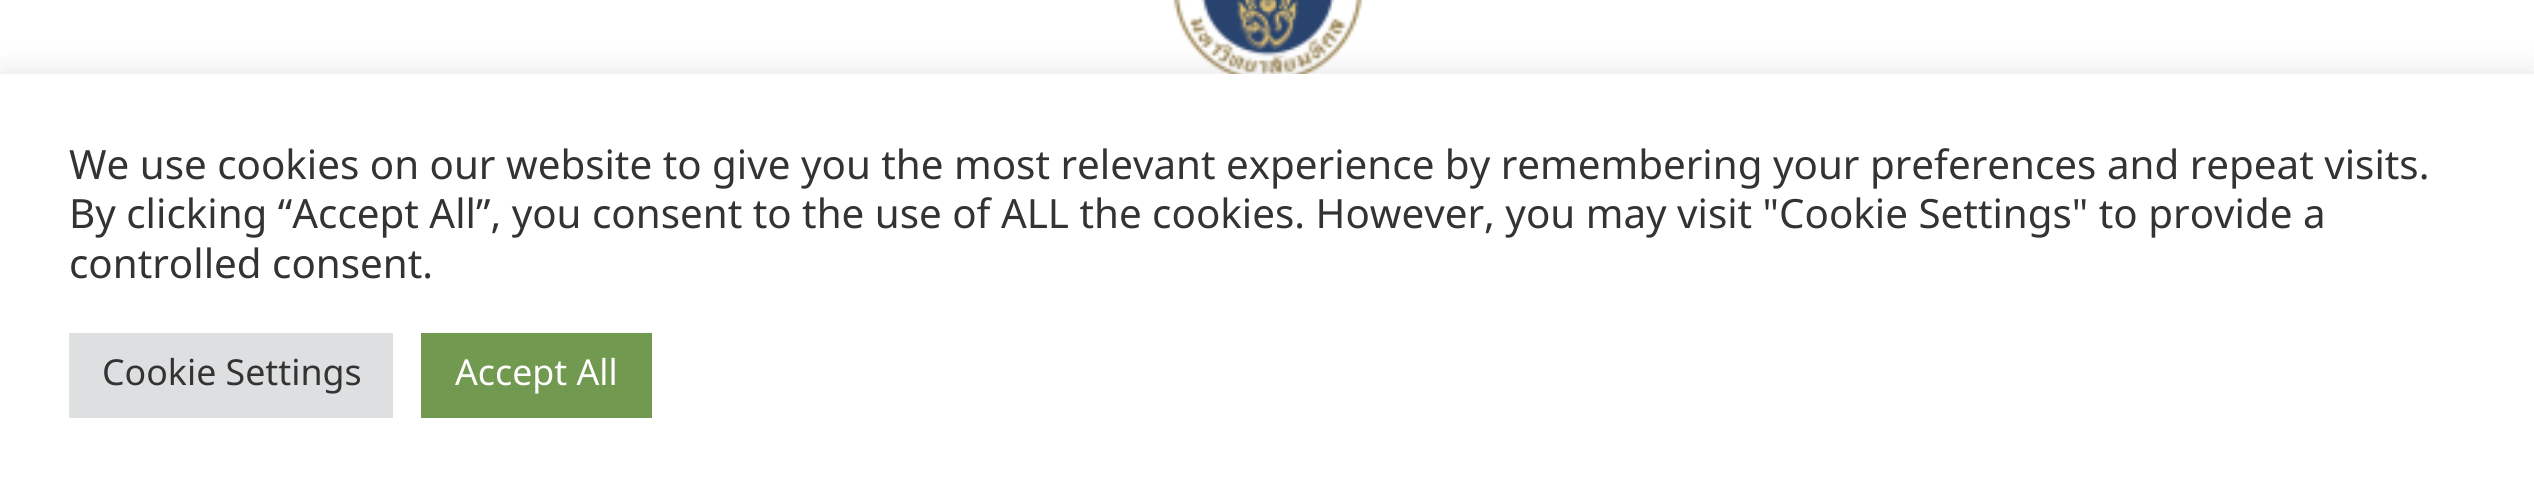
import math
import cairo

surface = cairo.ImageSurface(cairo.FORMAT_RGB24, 2534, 499)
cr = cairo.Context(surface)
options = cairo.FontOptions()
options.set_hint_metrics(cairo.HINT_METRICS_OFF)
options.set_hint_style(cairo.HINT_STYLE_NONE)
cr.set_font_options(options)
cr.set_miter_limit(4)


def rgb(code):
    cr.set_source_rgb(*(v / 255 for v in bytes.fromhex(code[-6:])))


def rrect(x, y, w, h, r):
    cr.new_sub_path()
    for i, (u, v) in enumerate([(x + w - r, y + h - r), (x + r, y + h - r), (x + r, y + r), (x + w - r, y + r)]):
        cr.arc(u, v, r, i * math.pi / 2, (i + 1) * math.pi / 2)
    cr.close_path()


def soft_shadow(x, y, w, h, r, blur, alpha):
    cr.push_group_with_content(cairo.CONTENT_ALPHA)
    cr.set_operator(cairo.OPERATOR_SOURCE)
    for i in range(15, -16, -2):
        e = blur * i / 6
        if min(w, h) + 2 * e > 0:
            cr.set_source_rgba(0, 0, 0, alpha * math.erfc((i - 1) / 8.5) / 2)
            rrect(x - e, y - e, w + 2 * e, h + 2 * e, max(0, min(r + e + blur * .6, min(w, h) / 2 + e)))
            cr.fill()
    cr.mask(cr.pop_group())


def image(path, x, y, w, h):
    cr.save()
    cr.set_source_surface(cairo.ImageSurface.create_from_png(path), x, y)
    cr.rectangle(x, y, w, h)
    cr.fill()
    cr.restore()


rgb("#ffffff")
cr.paint()
image("img/1.png", 1173, 0, 190, 74)
rgb("#acabab")
soft_shadow(0, 72, 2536, 426, 0, 14, 0.3)
for x, y, w, h, color in [
    (0, 74, 2534, 425, "#ffffff"),
    (69, 333, 324, 85, "#dedfe0"),
    (421, 333, 231, 85, "#729950"),
]:
    rgb(color)
    cr.rectangle(x, y, w, h)
    cr.fill()
cr.select_font_face("Noto Sans")
cr.set_font_size(40.33)
rgb("#333333")
for x, y, s in [
    (69, 179, "We use cookies on our website to give you the most relevant experience by remembering your preferences and repeat visits."),
    (69, 228, "By clicking “Accept All”, you consent to the use of ALL the cookies. However, you may visit \"Cookie Settings\" to provide a"),
    (69, 278, "controlled consent."),
]:
    cr.move_to(x, y)
    cr.show_text(s)
cr.set_font_size(35.75)
cr.move_to(102, 385)
cr.show_text("Cookie Settings")
rgb("#ffffff")
cr.move_to(455, 385)
cr.show_text("Accept All")
surface.write_to_png("page.png")
